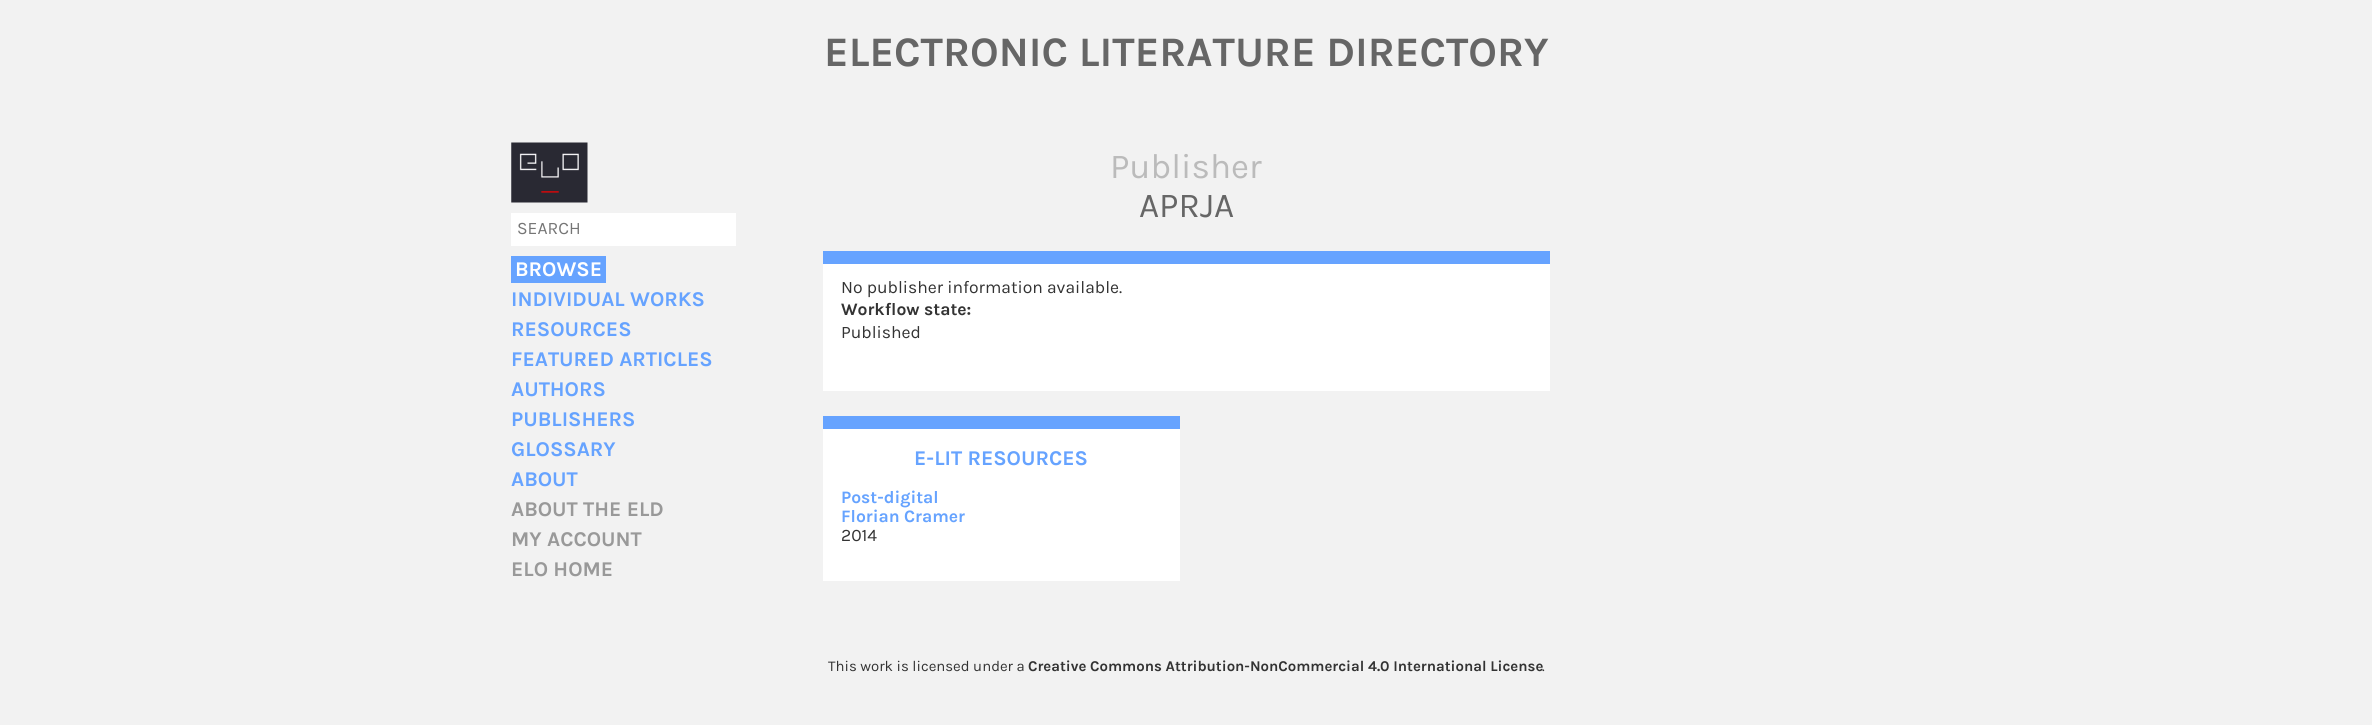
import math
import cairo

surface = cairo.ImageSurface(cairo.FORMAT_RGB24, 2372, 725)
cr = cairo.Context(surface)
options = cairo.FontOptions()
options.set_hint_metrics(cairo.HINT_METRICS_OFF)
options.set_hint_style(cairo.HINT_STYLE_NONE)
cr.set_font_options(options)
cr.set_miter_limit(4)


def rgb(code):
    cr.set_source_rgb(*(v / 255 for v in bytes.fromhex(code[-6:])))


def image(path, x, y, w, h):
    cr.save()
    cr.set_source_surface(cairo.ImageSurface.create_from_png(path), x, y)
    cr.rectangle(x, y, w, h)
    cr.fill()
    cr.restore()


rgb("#f2f2f2")
cr.paint()
image("img/1.png", 511, 142, 77, 61)
for x, y, w, h, color in [
    (511, 213, 225, 33, "#ffffff"),
    (511, 256, 95, 27, "#66a3ff"),
    (823, 264, 727, 127, "#ffffff"),
    (823, 251, 727, 13, "#66a3ff"),
    (823, 429, 357, 152, "#ffffff"),
    (823, 416, 357, 13, "#66a3ff"),
]:
    rgb(color)
    cr.rectangle(x, y, w, h)
    cr.fill()
cr.select_font_face("Karla", cairo.FONT_SLANT_NORMAL, cairo.FONT_WEIGHT_BOLD)
cr.set_font_size(42)
rgb("#666666")
cr.move_to(824, 66)
cr.show_text("ELECTRONIC LITERATURE DIRECTORY")
cr.select_font_face("Karla")
cr.set_font_size(17.5)
rgb("#757575")
cr.move_to(517, 234)
cr.show_text("SEARCH")
cr.select_font_face("Karla", cairo.FONT_SLANT_NORMAL, cairo.FONT_WEIGHT_BOLD)
cr.set_font_size(21)
rgb("#ffffff")
cr.move_to(515, 276)
cr.show_text("BROWSE")
rgb("#66a3ff")
for x, y, s in [
    (511, 306, "INDIVIDUAL WORKS"),
    (511, 336, "RESOURCES"),
    (511, 366, "FEATURED ARTICLES"),
    (511, 396, "AUTHORS"),
    (511, 426, "PUBLISHERS"),
    (511, 456, "GLOSSARY"),
    (511, 486, "ABOUT"),
]:
    cr.move_to(x, y)
    cr.show_text(s)
rgb("#999999")
for x, y, s in [
    (511, 516, "ABOUT THE ELD"),
    (511, 546, "MY ACCOUNT"),
    (511, 576, "ELO HOME"),
]:
    cr.move_to(x, y)
    cr.show_text(s)
cr.select_font_face("Karla")
cr.set_font_size(35)
rgb("#bbbbbb")
cr.move_to(1110, 178)
cr.show_text("Publisher")
rgb("#666666")
cr.move_to(1139, 217)
cr.show_text("APRJA")
cr.set_font_size(17.5)
rgb("#333333")
cr.move_to(841, 293)
cr.show_text("No publisher information available.")
cr.select_font_face("Karla", cairo.FONT_SLANT_NORMAL, cairo.FONT_WEIGHT_BOLD)
cr.move_to(841, 315)
cr.show_text("Workflow state:")
cr.select_font_face("Karla")
cr.move_to(841, 338)
cr.show_text("Published")
cr.select_font_face("Karla", cairo.FONT_SLANT_NORMAL, cairo.FONT_WEIGHT_BOLD)
cr.set_font_size(21)
rgb("#66a3ff")
cr.move_to(914, 465)
cr.show_text("E-LIT RESOURCES")
cr.set_font_size(17.5)
cr.move_to(841, 503)
cr.show_text("Post-digital")
cr.move_to(841, 522)
cr.show_text("Florian Cramer")
cr.select_font_face("Karla")
rgb("#333333")
cr.move_to(841, 541)
cr.show_text("2014")
cr.set_font_size(14.9)
cr.move_to(828, 671)
cr.show_text("This work is licensed under a")
cr.select_font_face("Karla", cairo.FONT_SLANT_NORMAL, cairo.FONT_WEIGHT_BOLD)
cr.move_to(1028, 671)
cr.show_text("Creative Commons Attribution-NonCommercial 4.0 International License")
cr.select_font_face("Karla")
cr.move_to(1542, 671)
cr.show_text(".")
surface.write_to_png("page.png")
